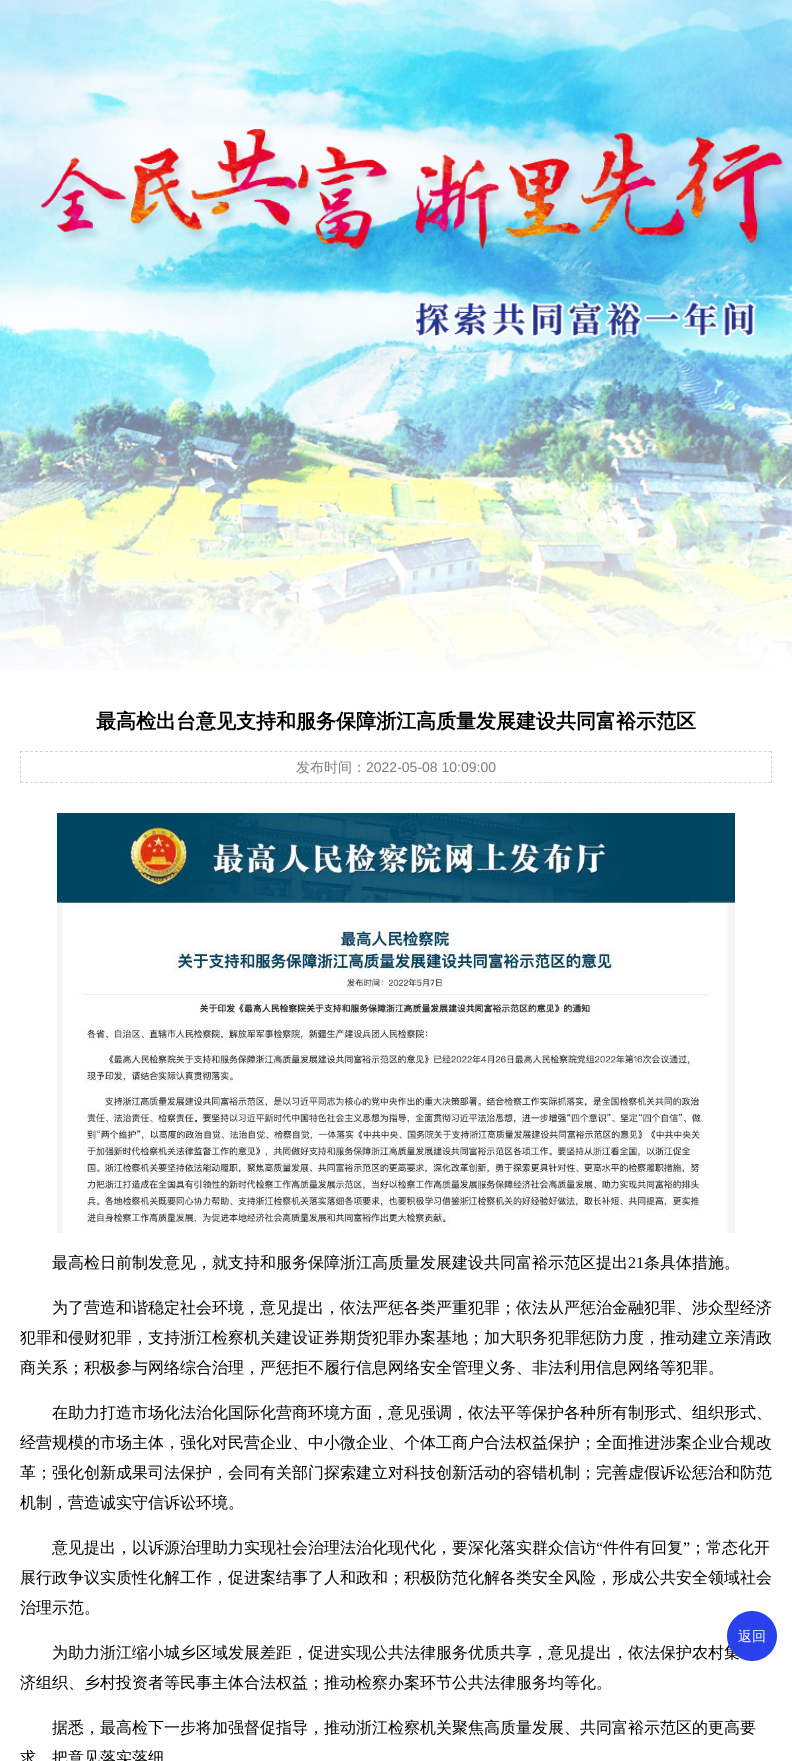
import math
import cairo

surface = cairo.ImageSurface(cairo.FORMAT_RGB24, 792, 1761)
cr = cairo.Context(surface)
options = cairo.FontOptions()
options.set_hint_metrics(cairo.HINT_METRICS_OFF)
options.set_hint_style(cairo.HINT_STYLE_NONE)
cr.set_font_options(options)
cr.set_miter_limit(4)


def rgb(code):
    cr.set_source_rgb(*(v / 255 for v in bytes.fromhex(code[-6:])))


def rrect(x, y, w, h, r):
    cr.new_sub_path()
    for i, (u, v) in enumerate([(x + w - r, y + h - r), (x + r, y + h - r), (x + r, y + r), (x + w - r, y + r)]):
        cr.arc(u, v, r, i * math.pi / 2, (i + 1) * math.pi / 2)
    cr.close_path()


def soft_shadow(x, y, w, h, r, blur, alpha):
    cr.push_group_with_content(cairo.CONTENT_ALPHA)
    cr.set_operator(cairo.OPERATOR_SOURCE)
    for i in range(15, -16, -2):
        e = blur * i / 6
        if min(w, h) + 2 * e > 0:
            cr.set_source_rgba(0, 0, 0, alpha * math.erfc((i - 1) / 8.5) / 2)
            rrect(x - e, y - e, w + 2 * e, h + 2 * e, max(0, min(r + e + blur * .6, min(w, h) / 2 + e)))
            cr.fill()
    cr.mask(cr.pop_group())


def image(path, x, y, w, h):
    cr.save()
    cr.set_source_surface(cairo.ImageSurface.create_from_png(path), x, y)
    cr.rectangle(x, y, w, h)
    cr.fill()
    cr.restore()


rgb("#ffffff")
cr.paint()
image("img/1.png", 0, 0, 792, 671)
cr.new_path()
cr.move_to(20, 751.5)
cr.line_to(772, 751.5)
rgb("#d3d3d3")
cr.set_line_width(1)
cr.set_dash([3, 1.99])
cr.stroke()
cr.new_path()
cr.move_to(771.5, 751)
cr.line_to(771.5, 783)
cr.set_dash([3, 1.83])
cr.stroke()
cr.new_path()
cr.move_to(20, 782.5)
cr.line_to(772, 782.5)
cr.set_dash([3, 1.99])
cr.stroke()
cr.new_path()
cr.move_to(20.5, 751)
cr.line_to(20.5, 783)
cr.set_dash([3, 1.83])
cr.stroke()
image("img/2.png", 57, 813, 678, 420)
rgb("#ffffff")
soft_shadow(727, 1611, 50, 50, 25, 5, 1)
cr.select_font_face("WenQuanYi Zen Hei", cairo.FONT_SLANT_NORMAL, cairo.FONT_WEIGHT_BOLD)
cr.set_font_size(20)
rgb("#000000")
cr.move_to(96, 728)
cr.show_text("最高检出台意见支持和服务保障浙江高质量发展建设共同富裕示范区")
cr.select_font_face("WenQuanYi Zen Hei Medium")
cr.set_font_size(14)
rgb("#7c7c7c")
cr.move_to(296, 772)
cr.show_text("发布时间：")
cr.select_font_face("Liberation Sans")
cr.move_to(366, 772)
cr.show_text("2022-05-08 10:09:00")
cr.select_font_face("WenQuanYi Zen Hei Medium")
cr.set_font_size(16)
rgb("#000000")
cr.move_to(52, 1268)
cr.show_text("最高检日前制发意见，就支持和服务保障浙江高质量发展建设共同富裕示范区提出")
cr.select_font_face("Liberation Serif")
cr.move_to(628, 1268)
cr.show_text("21")
cr.select_font_face("WenQuanYi Zen Hei Medium")
for x, y, s in [
    (644, 1268, "条具体措施。"),
    (52, 1313, "为了营造和谐稳定社会环境，意见提出，依法严惩各类严重犯罪；依法从严惩治金融犯罪、涉众型经济"),
    (20, 1343, "犯罪和侵财犯罪，支持浙江检察机关建设证券期货犯罪办案基地；加大职务犯罪惩防力度，推动建立亲清政"),
    (20, 1373, "商关系；积极参与网络综合治理，严惩拒不履行信息网络安全管理义务、非法利用信息网络等犯罪。"),
    (52, 1418, "在助力打造市场化法治化国际化营商环境方面，意见强调，依法平等保护各种所有制形式、组织形式、"),
    (20, 1448, "经营规模的市场主体，强化对民营企业、中小微企业、个体工商户合法权益保护；全面推进涉案企业合规改"),
    (20, 1478, "革；强化创新成果司法保护，会同有关部门探索建立对科技创新活动的容错机制；完善虚假诉讼惩治和防范"),
    (20, 1508, "机制，营造诚实守信诉讼环境。"),
    (52, 1553, "意见提出，以诉源治理助力实现社会治理法治化现代化，要深化落实群众信访"),
]:
    cr.move_to(x, y)
    cr.show_text(s)
cr.select_font_face("Liberation Serif")
cr.move_to(596, 1553)
cr.show_text("“")
cr.select_font_face("WenQuanYi Zen Hei Medium")
cr.move_to(603, 1553)
cr.show_text("件件有回复")
cr.select_font_face("Liberation Serif")
cr.move_to(683, 1553)
cr.show_text("”")
cr.select_font_face("WenQuanYi Zen Hei Medium")
for x, y, s in [
    (690, 1553, "；常态化开"),
    (20, 1583, "展行政争议实质性化解工作，促进案结事了人和政和；积极防范化解各类安全风险，形成公共安全领域社会"),
    (20, 1613, "治理示范。"),
    (52, 1658, "为助力浙江缩小城乡区域发展差距，促进实现公共法律服务优质共享，意见提出，依法保护农村集"),
    (20, 1688, "济组织、乡村投资者等民事主体合法权益；推动检察办案环节公共法律服务均等化。"),
    (52, 1733, "据悉，最高检下一步将加强督促指导，推动浙江检察机关聚焦高质量发展、共同富裕示范区的更高要"),
    (20, 1763, "求，把意见落实落细"),
]:
    cr.move_to(x, y)
    cr.show_text(s)
rgb("#2940ed")
cr.new_path()
cr.arc(752, 1636, 25, 0, 2 * math.pi)
cr.fill()
cr.set_font_size(14)
rgb("#ffffff")
cr.move_to(738, 1641)
cr.show_text("返回")
surface.write_to_png("page.png")
